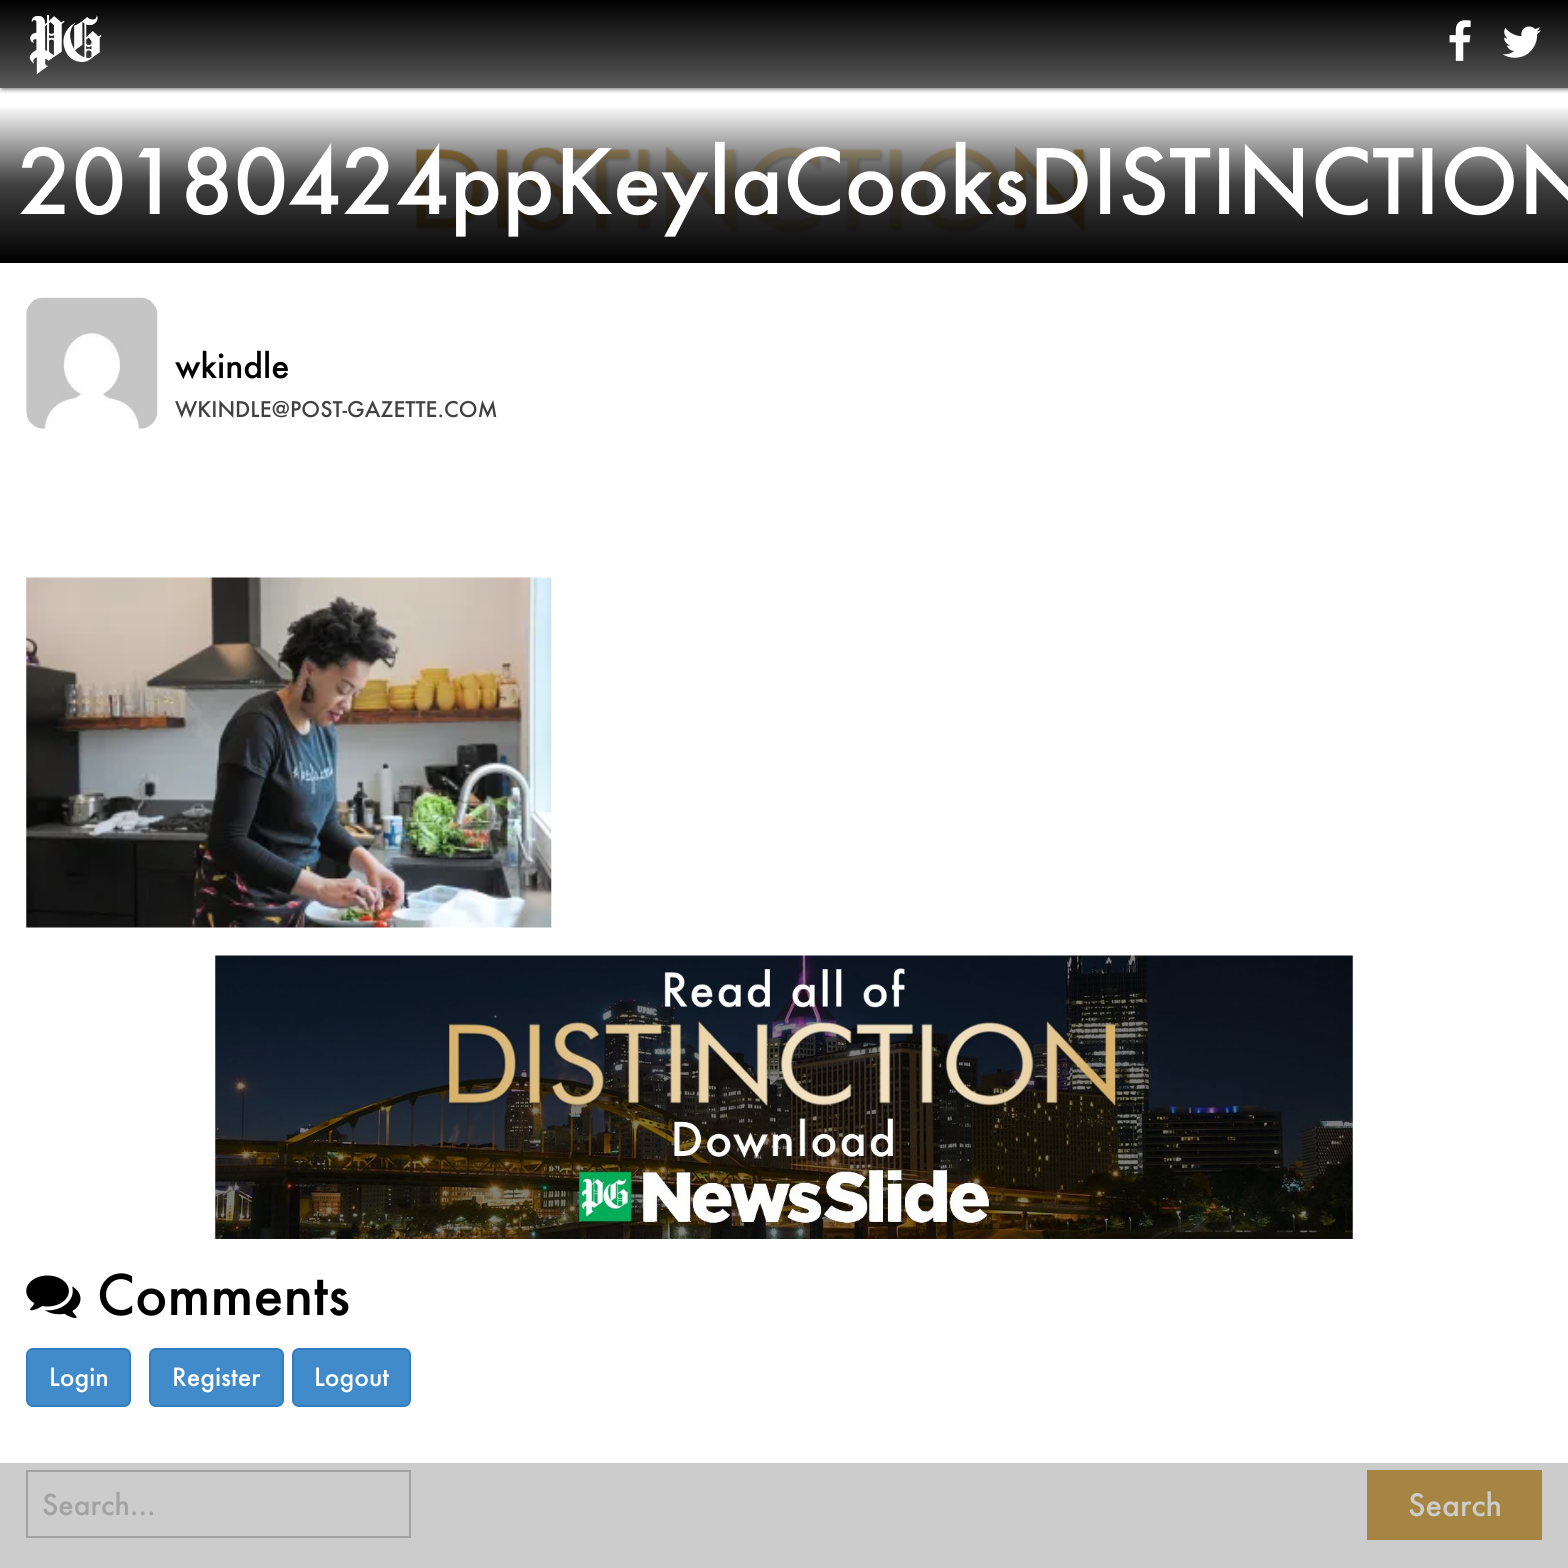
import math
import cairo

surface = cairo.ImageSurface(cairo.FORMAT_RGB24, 1568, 1568)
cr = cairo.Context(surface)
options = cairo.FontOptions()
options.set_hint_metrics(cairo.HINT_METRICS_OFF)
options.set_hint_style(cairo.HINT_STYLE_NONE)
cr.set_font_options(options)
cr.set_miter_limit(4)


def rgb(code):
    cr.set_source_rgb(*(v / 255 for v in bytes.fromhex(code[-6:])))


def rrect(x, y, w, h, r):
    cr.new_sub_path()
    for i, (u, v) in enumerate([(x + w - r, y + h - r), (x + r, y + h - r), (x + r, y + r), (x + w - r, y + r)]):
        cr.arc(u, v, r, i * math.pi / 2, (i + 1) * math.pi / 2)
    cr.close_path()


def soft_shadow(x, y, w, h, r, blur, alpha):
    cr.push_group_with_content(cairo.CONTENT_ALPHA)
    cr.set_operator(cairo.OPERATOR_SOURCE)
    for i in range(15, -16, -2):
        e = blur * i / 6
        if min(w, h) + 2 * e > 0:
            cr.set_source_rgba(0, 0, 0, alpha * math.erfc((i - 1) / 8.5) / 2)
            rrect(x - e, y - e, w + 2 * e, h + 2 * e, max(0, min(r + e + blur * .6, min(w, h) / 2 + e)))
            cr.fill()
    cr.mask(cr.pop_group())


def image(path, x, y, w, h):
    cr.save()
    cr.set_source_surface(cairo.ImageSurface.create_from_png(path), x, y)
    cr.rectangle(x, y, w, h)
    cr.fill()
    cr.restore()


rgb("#ffffff")
cr.paint()
rgb("#cccccc")
cr.rectangle(0, 1463, 1568, 105)
cr.fill()
cr.save()
cr.set_fill_rule(cairo.FILL_RULE_EVEN_ODD)
cr.new_path()
cr.move_to(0, 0)
cr.line_to(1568, 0)
cr.line_to(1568, 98)
cr.line_to(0, 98)
cr.close_path()
cr.move_to(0, 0)
cr.line_to(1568, 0)
cr.line_to(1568, 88)
cr.line_to(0, 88)
cr.close_path()
cr.clip()
rgb("#000000")
soft_shadow(2, 2, 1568, 87, 0, 2.5, 0.6)
cr.restore()
gradient = cairo.LinearGradient(784, 0, 784, 88)
gradient.add_color_stop_rgba(0, 0, 0, 0, 1)
gradient.add_color_stop_rgba(1, 0, 0, 0, 0.65)
cr.set_source(gradient)
cr.rectangle(0, 0, 1568, 88)
cr.fill()
image("img/1.png", 29, 15, 73, 60)
image("img/2.png", 1449, 20, 22, 41)
image("img/3.png", 1502, 26, 39, 32)
image("img/4.png", 415, 146, 672, 88)
gradient = cairo.LinearGradient(784, 105, 784, 263)
gradient.add_color_stop_rgba(0, 0, 0, 0, 0)
gradient.add_color_stop_rgba(0.5, 0, 0, 0, 0.75)
gradient.add_color_stop_rgba(1, 0, 0, 0, 1)
cr.set_source(gradient)
cr.rectangle(0, 107, 1568, 156)
cr.fill()
image("img/5.png", 26, 297, 132, 132)
image("img/6.png", 26, 577, 526, 351)
image("img/7.png", 215, 955, 1138, 284)
image("img/8.png", 26, 1275, 55, 44)
rgb("#428bca")
rrect(27, 1349, 103, 57, 6)
cr.fill_preserve()
rgb("#357ebd")
cr.stroke()
rgb("#428bca")
rrect(150, 1349, 133, 57, 6)
cr.fill_preserve()
rgb("#357ebd")
cr.stroke()
rgb("#428bca")
rrect(293, 1349, 117, 57, 6)
cr.fill_preserve()
rgb("#357ebd")
cr.stroke()
cr.rectangle(27, 1471, 383, 66)
rgb("#a2a2a2")
cr.stroke()
rgb("#a68542")
cr.rectangle(1367, 1470, 175, 70)
cr.fill()
cr.select_font_face("Futura Medium")
cr.set_font_size(87.5)
rgb("#ffffff")
cr.move_to(18, 214)
cr.show_text("20180424ppKeylaCooksDISTINCTION")
cr.set_font_size(33)
rgb("#000000")
cr.move_to(175, 378)
cr.show_text("wkindle")
cr.set_font_size(21)
rgb("#404040")
cr.move_to(175, 417)
cr.show_text("WKINDLE@POST-GAZETTE.COM")
cr.set_font_size(54.25)
rgb("#000000")
cr.move_to(97, 1315)
cr.show_text("Comments")
cr.set_font_size(24.5)
rgb("#ffffff")
for x, y, s in [
    (49, 1386, "Login"),
    (172, 1386, "Register"),
    (314, 1386, "Logout"),
]:
    cr.move_to(x, y)
    cr.show_text(s)
cr.set_font_size(28)
rgb("#a2a2a2")
cr.move_to(42, 1515)
cr.show_text("Search...")
cr.set_font_size(30)
rgb("#cccccc")
cr.move_to(1408, 1516)
cr.show_text("Search")
surface.write_to_png("page.png")
